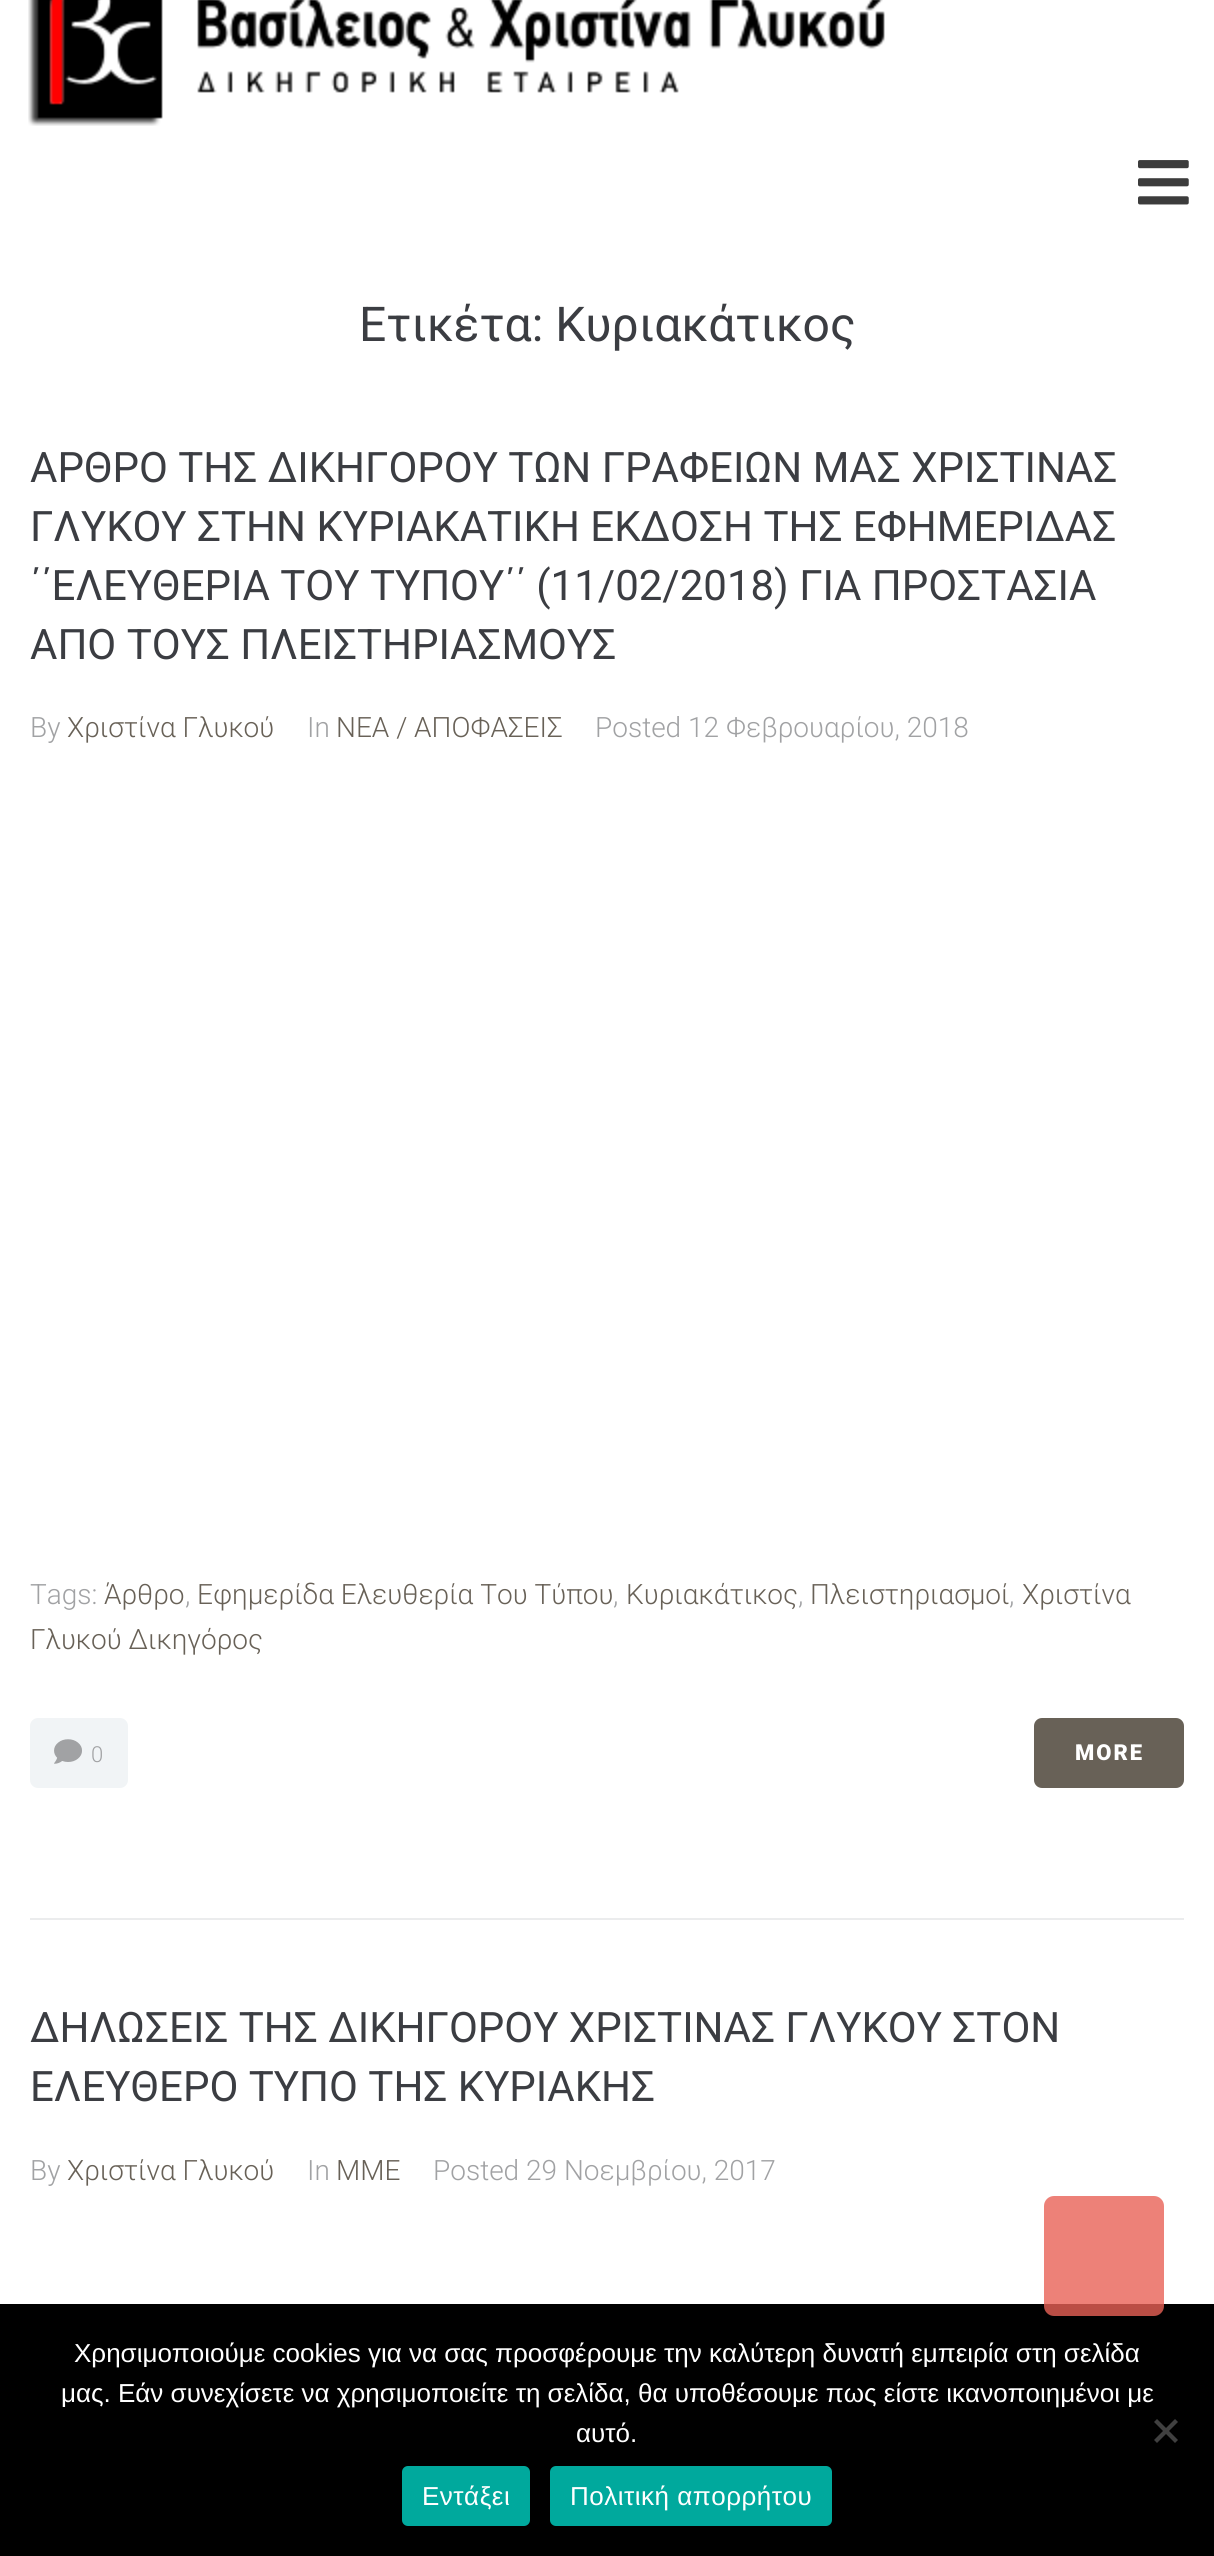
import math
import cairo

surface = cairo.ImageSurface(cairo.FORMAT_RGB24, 1214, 2556)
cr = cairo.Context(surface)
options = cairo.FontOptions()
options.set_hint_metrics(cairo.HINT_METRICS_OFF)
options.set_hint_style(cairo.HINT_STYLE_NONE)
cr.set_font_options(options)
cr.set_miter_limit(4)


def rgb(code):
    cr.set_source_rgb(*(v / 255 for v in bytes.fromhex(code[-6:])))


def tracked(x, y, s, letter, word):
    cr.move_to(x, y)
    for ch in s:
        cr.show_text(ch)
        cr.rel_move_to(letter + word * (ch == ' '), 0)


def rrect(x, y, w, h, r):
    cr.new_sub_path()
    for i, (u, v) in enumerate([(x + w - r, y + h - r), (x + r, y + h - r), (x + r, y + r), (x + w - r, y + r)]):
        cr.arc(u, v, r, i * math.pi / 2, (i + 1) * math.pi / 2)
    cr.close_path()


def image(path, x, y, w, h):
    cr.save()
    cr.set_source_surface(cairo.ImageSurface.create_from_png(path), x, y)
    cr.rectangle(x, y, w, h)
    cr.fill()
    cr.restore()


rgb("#ffffff")
cr.paint()
image("img/1.png", 28, 0, 857, 126)
image("img/2.png", 1138, 160, 51, 45)
rgb("#f1f4f6")
rrect(30, 1718, 98, 70, 8)
cr.fill()
image("img/3.png", 54, 1739, 28, 25)
rgb("#686157")
rrect(1034, 1718, 150, 70, 8)
cr.fill()
rgb("#ebeced")
cr.rectangle(30, 1918, 1154, 2)
cr.fill()
rgb("#000000")
cr.rectangle(0, 2304, 1214, 252)
cr.fill()
cr.set_source_rgba(0.91, 0.384, 0.337, 0.8)
rrect(1044, 2196, 120, 120, 10)
cr.fill()
rgb("#404040")
cr.new_path()
cr.move_to(1175, 2419)
cr.line_to(1178, 2422)
cr.line_to(1157, 2443)
cr.line_to(1154, 2440)
cr.close_path()
cr.fill()
cr.new_path()
cr.move_to(1154, 2422)
cr.line_to(1157, 2419)
cr.line_to(1178, 2440)
cr.line_to(1175, 2443)
cr.close_path()
cr.fill()
rgb("#00a99d")
rrect(402, 2466, 128, 60, 6)
cr.fill()
rrect(550, 2466, 282, 60, 6)
cr.fill()
cr.select_font_face("Roboto")
cr.set_font_size(48)
rgb("#3b3d42")
cr.move_to(359, 341)
cr.show_text("Ετικέτα: Κυριακάτικος")
cr.set_font_size(42)
for x, y, s in [
    (30, 482, "ΑΡΘΡΟ ΤΗΣ ΔΙΚΗΓΟΡΟΥ ΤΩΝ ΓΡΑΦΕΙΩΝ ΜΑΣ ΧΡΙΣΤΙΝΑΣ"),
    (30, 541, "ΓΛΥΚΟΥ ΣΤΗΝ ΚΥΡΙΑΚΑΤΙΚΗ ΕΚΔΟΣΗ ΤΗΣ ΕΦΗΜΕΡΙΔΑΣ"),
    (30, 600, "΄΄ΕΛΕΥΘΕΡΙΑ ΤΟΥ ΤΥΠΟΥ΄΄ (11/02/2018) ΓΙΑ ΠΡΟΣΤΑΣΙΑ"),
    (30, 659, "ΑΠΟ ΤΟΥΣ ΠΛΕΙΣΤΗΡΙΑΣΜΟΥΣ"),
]:
    cr.move_to(x, y)
    cr.show_text(s)
cr.select_font_face("Roboto Light")
cr.set_font_size(28)
rgb("#a1a2a4")
cr.move_to(30, 737)
cr.show_text("By")
rgb("#686157")
cr.move_to(67, 737)
cr.show_text("Χριστίνα Γλυκού")
rgb("#a1a2a4")
cr.move_to(307, 737)
cr.show_text("In")
rgb("#686157")
cr.move_to(336, 737)
cr.show_text("ΝΕΑ / ΑΠΟΦΑΣΕΙΣ")
rgb("#a1a2a4")
cr.move_to(595, 737)
cr.show_text("Posted 12 Φεβρουαρίου, 2018")
cr.move_to(30, 1604)
cr.show_text("Tags:")
rgb("#686157")
cr.move_to(104, 1604)
cr.show_text("Άρθρο")
rgb("#a1a2a4")
cr.move_to(185, 1604)
cr.show_text(",")
rgb("#686157")
cr.move_to(197, 1604)
cr.show_text("Εφημερίδα Ελευθερία Του Τύπου")
rgb("#a1a2a4")
cr.move_to(613, 1604)
cr.show_text(",")
rgb("#686157")
cr.move_to(626, 1604)
cr.show_text("Κυριακάτικος")
rgb("#a1a2a4")
cr.move_to(798, 1604)
cr.show_text(",")
rgb("#686157")
cr.move_to(810, 1604)
cr.show_text("Πλειστηριασμοί")
rgb("#a1a2a4")
cr.move_to(1009, 1604)
cr.show_text(",")
rgb("#686157")
cr.move_to(1022, 1604)
cr.show_text("Χριστίνα")
cr.move_to(30, 1649)
cr.show_text("Γλυκού Δικηγόρος")
cr.set_font_size(22)
rgb("#a1a2a4")
cr.move_to(91, 1762)
cr.show_text("0")
cr.select_font_face("Roboto Black")
rgb("#ffffff")
tracked(1075, 1760, "MORE", 2, 0)
cr.select_font_face("Roboto")
cr.set_font_size(42)
rgb("#3b3d42")
cr.move_to(30, 2042)
cr.show_text("ΔΗΛΩΣΕΙΣ ΤΗΣ ΔΙΚΗΓΟΡΟΥ ΧΡΙΣΤΙΝΑΣ ΓΛΥΚΟΥ ΣΤΟΝ")
cr.move_to(30, 2101)
cr.show_text("ΕΛΕΥΘΕΡΟ ΤΥΠΟ ΤΗΣ ΚΥΡΙΑΚΗΣ")
cr.select_font_face("Roboto Light")
cr.set_font_size(28)
rgb("#a1a2a4")
cr.move_to(30, 2180)
cr.show_text("By")
rgb("#686157")
cr.move_to(67, 2180)
cr.show_text("Χριστίνα Γλυκού")
rgb("#a1a2a4")
cr.move_to(307, 2180)
cr.show_text("In")
rgb("#686157")
cr.move_to(336, 2180)
cr.show_text("ΜΜΕ")
rgb("#a1a2a4")
cr.move_to(433, 2180)
cr.show_text("Posted 29 Νοεμβρίου, 2017")
cr.select_font_face("Liberation Sans")
cr.set_font_size(26)
rgb("#ffffff")
for x, y, s in [
    (74, 2362, "Χρησιμοποιούμε cookies για να σας προσφέρουμε την καλύτερη δυνατή εμπειρία στη σελίδα"),
    (61, 2402, "μας. Εάν συνεχίσετε να χρησιμοποιείτε τη σελίδα, θα υποθέσουμε πως είστε ικανοποιημένοι με"),
    (576, 2442, "αυτό."),
]:
    cr.move_to(x, y)
    cr.show_text(s)
tracked(422, 2505, "Εντάξει", 0.5, 0)
tracked(570, 2505, "Πολιτική απορρήτου", 0.5, 0)
surface.write_to_png("page.png")
